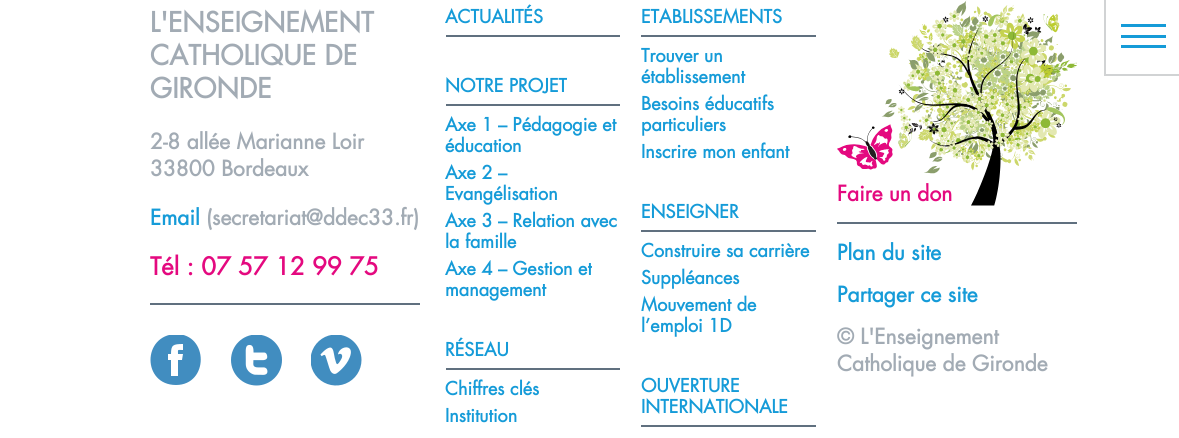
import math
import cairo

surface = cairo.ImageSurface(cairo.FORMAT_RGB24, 1179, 438)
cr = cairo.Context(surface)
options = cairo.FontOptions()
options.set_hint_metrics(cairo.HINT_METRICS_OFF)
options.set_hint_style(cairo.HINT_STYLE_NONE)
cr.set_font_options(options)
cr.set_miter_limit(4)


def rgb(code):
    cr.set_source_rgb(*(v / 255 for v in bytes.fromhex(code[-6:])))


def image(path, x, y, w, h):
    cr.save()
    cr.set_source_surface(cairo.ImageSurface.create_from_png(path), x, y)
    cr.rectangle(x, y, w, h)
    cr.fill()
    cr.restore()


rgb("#ffffff")
cr.paint()
rgb("#60707f")
cr.rectangle(150, 303, 270, 2)
cr.fill()
cr.save()
cr.rectangle(150, 335, 51, 51)
cr.clip()
rgb("#418dc0")
cr.new_path()
cr.move_to(176, 334)
cr.curve_to(142, 335, 142, 385, 176, 385)
cr.curve_to(209, 385, 209, 334, 176, 334)
cr.close_path()
cr.move_to(182, 360)
cr.line_to(178, 360)
cr.line_to(178, 376)
cr.line_to(171, 376)
cr.line_to(171, 360)
cr.line_to(168, 360)
cr.line_to(168, 354)
cr.line_to(171, 354)
cr.curve_to(171, 345, 173, 344, 183, 344)
cr.line_to(183, 350)
cr.curve_to(177, 350, 178, 349, 178, 354)
cr.line_to(183, 354)
cr.close_path()
cr.fill()
cr.restore()
image("img/1.png", 231, 335, 51, 51)
image("img/2.png", 311, 335, 51, 51)
for x, y, w, h, color in [
    (446, 35, 174, 2, "#60707f"),
    (641, 35, 175, 2, "#60707f"),
    (446, 104, 174, 2, "#60707f"),
    (641, 230, 175, 2, "#60707f"),
    (446, 368, 174, 2, "#60707f"),
    (641, 425, 175, 2, "#60707f"),
    (837, 222, 240, 2, "#60707f"),
]:
    rgb(color)
    cr.rectangle(x, y, w, h)
    cr.fill()
image("img/3.png", 837, 0, 240, 206)
for x, y, w, h, color in [
    (1104, 74, 75, 2, "#d1d3d4"),
    (1104, 0, 2, 75, "#d1d3d4"),
    (1121, 24, 45, 3, "#159bd8"),
    (1121, 35, 45, 3, "#159bd8"),
    (1121, 45, 45, 3, "#159bd8"),
]:
    rgb(color)
    cr.rectangle(x, y, w, h)
    cr.fill()
cr.select_font_face("Futura", cairo.FONT_SLANT_NORMAL, cairo.FONT_WEIGHT_BOLD)
cr.set_font_size(27)
rgb("#a2abb4")
for x, y, s in [
    (150, 32, "L'ENSEIGNEMENT"),
    (150, 65, "CATHOLIQUE DE"),
    (150, 98, "GIRONDE"),
]:
    cr.move_to(x, y)
    cr.show_text(s)
cr.set_font_size(21)
cr.move_to(150, 149)
cr.show_text("2-8 allée Marianne Loir")
cr.move_to(150, 176)
cr.show_text("33800 Bordeaux")
rgb("#159bd8")
cr.move_to(150, 225)
cr.show_text("Email")
rgb("#a2abb4")
cr.move_to(206, 225)
cr.show_text("(secretariat@ddec33.fr)")
cr.set_font_size(24)
rgb("#e4097f")
cr.move_to(150, 275)
cr.show_text("Tél : 07 57 12 99 75")
cr.set_font_size(18)
rgb("#159bd8")
for x, y, s in [
    (445, 23, "ACTUALITÉS"),
    (641, 23, "ETABLISSEMENTS"),
    (641, 62, "Trouver un"),
    (641, 83, "établissement"),
    (641, 110, "Besoins éducatifs"),
    (641, 131, "particuliers"),
    (641, 158, "Inscrire mon enfant"),
    (445, 92, "NOTRE PROJET"),
    (445, 131, "Axe 1 – Pédagogie et"),
    (445, 152, "éducation"),
    (445, 179, "Axe 2 –"),
    (445, 200, "Evangélisation"),
    (445, 227, "Axe 3 – Relation avec"),
    (445, 248, "la famille"),
    (445, 275, "Axe 4 – Gestion et"),
    (445, 296, "management"),
    (641, 218, "ENSEIGNER"),
    (641, 257, "Construire sa carrière"),
    (641, 284, "Suppléances"),
    (641, 311, "Mouvement de"),
    (641, 332, "l’emploi 1D"),
    (445, 356, "RÉSEAU"),
    (445, 395, "Chiffres clés"),
    (445, 422, "Institution"),
    (641, 392, "OUVERTURE"),
    (641, 413, "INTERNATIONALE"),
]:
    cr.move_to(x, y)
    cr.show_text(s)
cr.set_font_size(21)
rgb("#e4097f")
cr.move_to(837, 201)
cr.show_text("Faire un don")
rgb("#159bd8")
cr.move_to(837, 260)
cr.show_text("Plan du site")
cr.move_to(837, 302)
cr.show_text("Partager ce site")
rgb("#a2abb4")
cr.move_to(837, 344)
cr.show_text("© L'Enseignement")
cr.move_to(837, 371)
cr.show_text("Catholique de Gironde")
surface.write_to_png("page.png")
